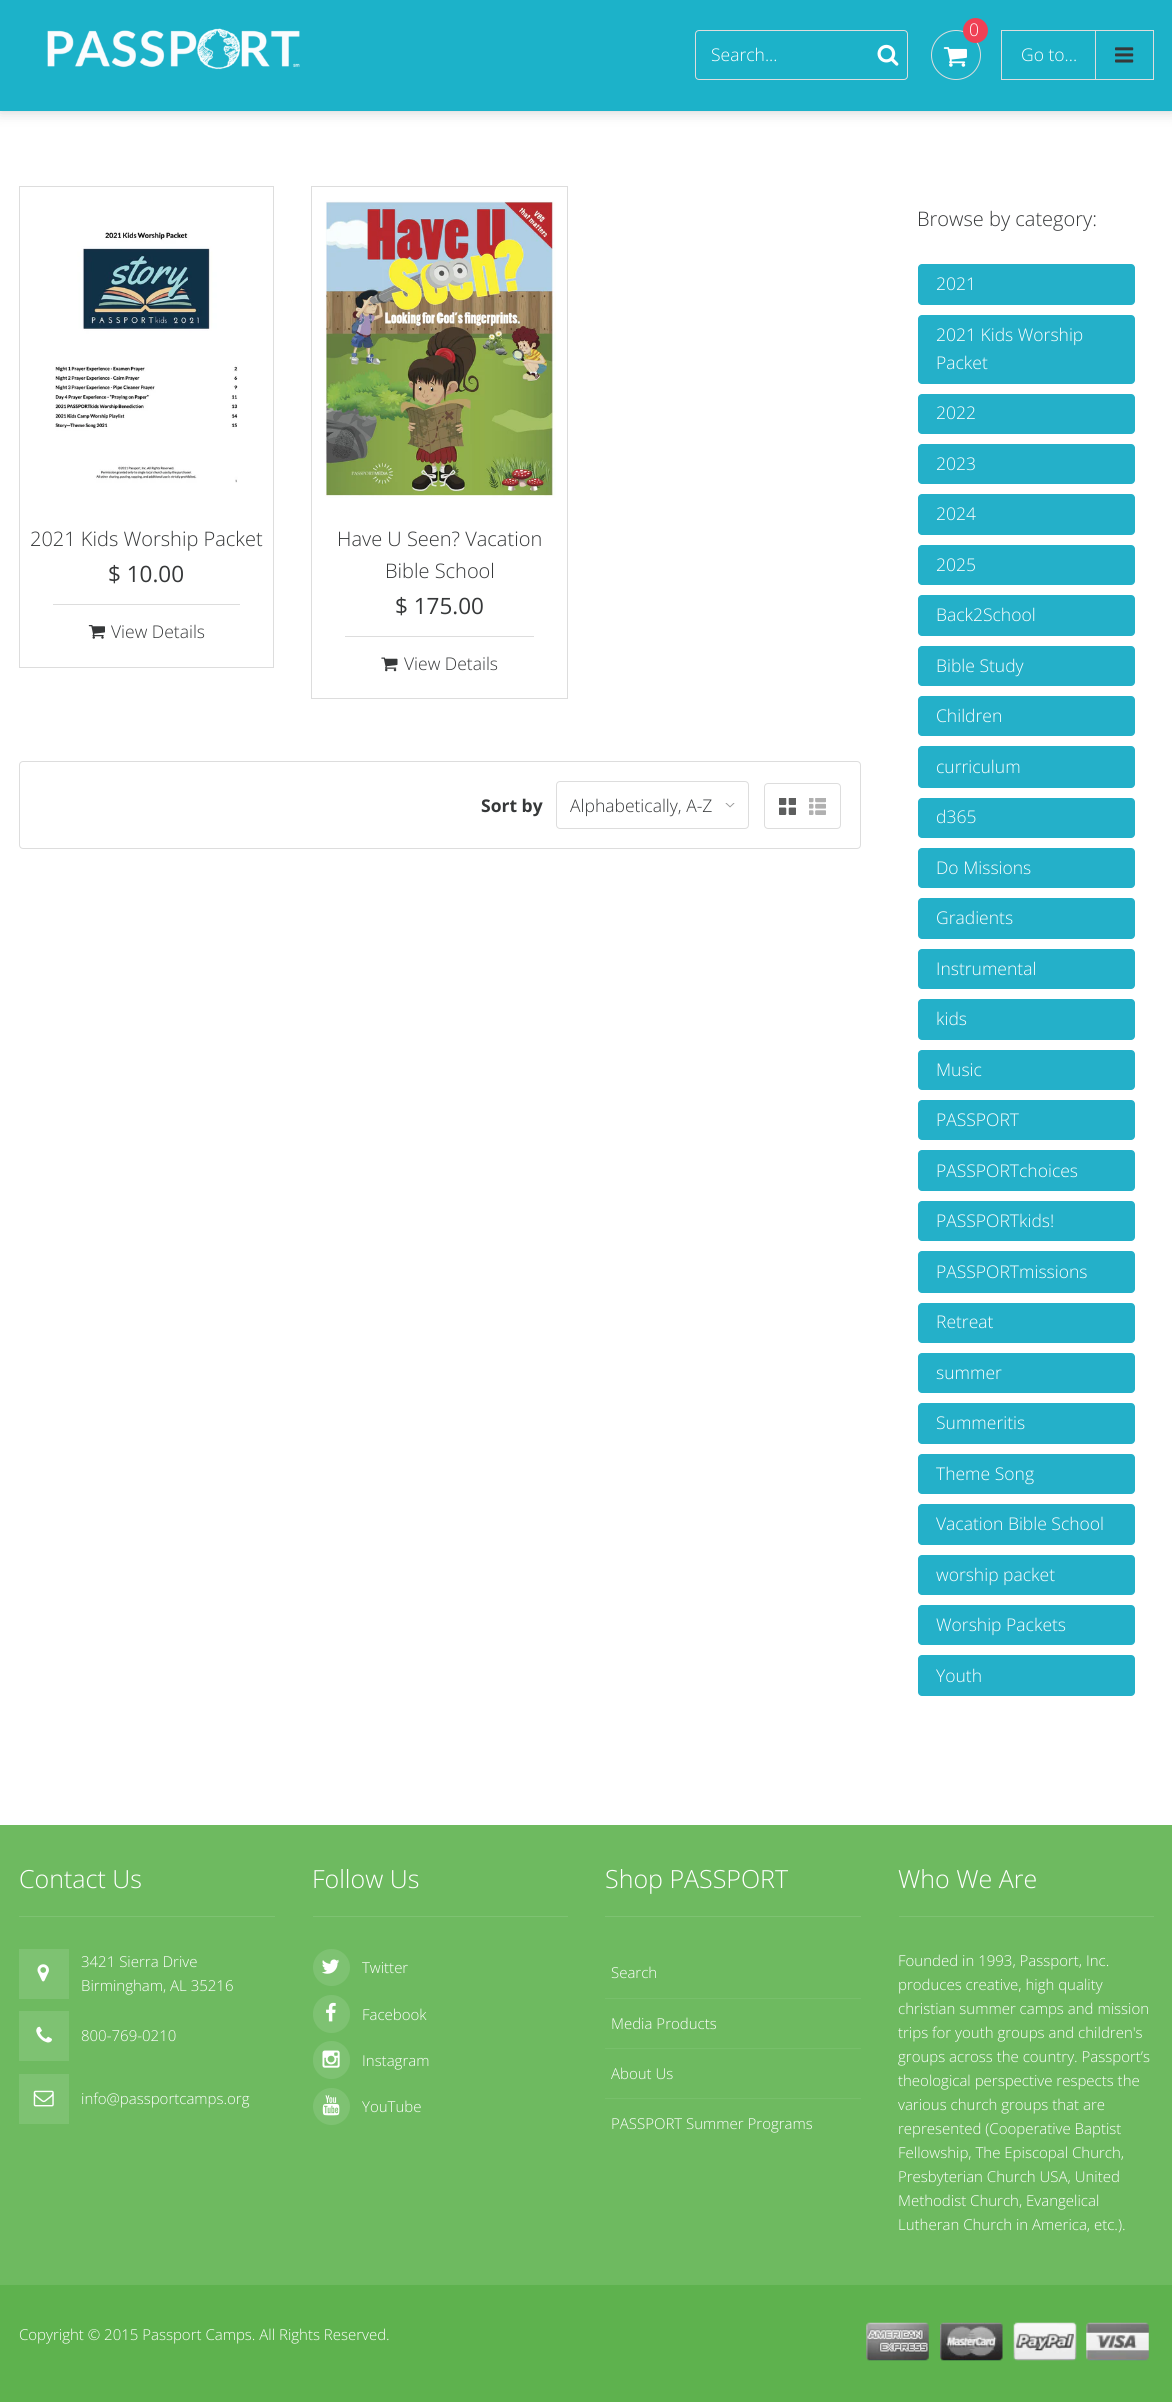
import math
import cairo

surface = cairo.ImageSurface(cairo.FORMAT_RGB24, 1172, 2402)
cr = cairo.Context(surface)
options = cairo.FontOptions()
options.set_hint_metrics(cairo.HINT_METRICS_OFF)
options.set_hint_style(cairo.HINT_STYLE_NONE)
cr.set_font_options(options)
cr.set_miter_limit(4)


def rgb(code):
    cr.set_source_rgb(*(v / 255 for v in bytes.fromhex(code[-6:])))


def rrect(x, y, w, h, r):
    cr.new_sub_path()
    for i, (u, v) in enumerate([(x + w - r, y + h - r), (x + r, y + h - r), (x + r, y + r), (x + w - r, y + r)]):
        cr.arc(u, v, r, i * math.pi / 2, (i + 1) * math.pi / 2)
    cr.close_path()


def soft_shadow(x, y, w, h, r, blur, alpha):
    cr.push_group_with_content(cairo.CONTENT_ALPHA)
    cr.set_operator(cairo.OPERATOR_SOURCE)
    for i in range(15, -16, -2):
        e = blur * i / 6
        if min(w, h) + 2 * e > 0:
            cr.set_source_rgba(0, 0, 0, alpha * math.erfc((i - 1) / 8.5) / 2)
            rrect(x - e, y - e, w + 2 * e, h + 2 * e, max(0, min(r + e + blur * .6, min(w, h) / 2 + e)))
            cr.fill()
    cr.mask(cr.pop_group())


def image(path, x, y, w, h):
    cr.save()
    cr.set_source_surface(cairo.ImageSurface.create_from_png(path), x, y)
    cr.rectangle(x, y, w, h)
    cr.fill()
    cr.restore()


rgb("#ffffff")
cr.paint()
rgb("#000000")
soft_shadow(0, -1, 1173, 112, 0, 7.5, 0.2)
rgb("#1cb2c9")
cr.rectangle(0, 0, 1172, 111)
cr.fill()
image("img/1.png", 47, 28, 253, 42)
cr.arc(956, 55, 24.5, 0, 2 * math.pi)
rgb("#dddddd")
cr.set_line_width(1)
cr.stroke()
rgb("#f04155")
cr.arc(975.5, 30.5, 12.5, 0, 2 * math.pi)
cr.fill()
image("img/2.png", 943, 47, 24, 20)
rrect(695.5, 30.5, 212, 49, 3.5)
rgb("#dddddd")
cr.stroke()
image("img/3.png", 877, 44, 22, 22)
cr.rectangle(1001.5, 30.5, 152, 49)
cr.stroke()
cr.rectangle(1095, 31, 1, 48)
cr.fill()
image("img/4.png", 1115, 47, 19, 16)
cr.rectangle(19.5, 186.5, 254, 481)
cr.stroke()
image("img/5.png", 55, 231, 183, 252)
cr.rectangle(53, 604, 187, 1)
cr.fill()
image("img/6.png", 88, 625, 17, 14)
cr.rectangle(311.5, 186.5, 256, 512)
cr.stroke()
image("img/7.png", 325, 200, 231, 298)
cr.rectangle(345, 636, 189, 1)
cr.fill()
image("img/8.png", 381, 657, 17, 15)
rrect(19.5, 761.5, 841, 87, 3.5)
cr.stroke()
image("img/9.png", 725, 803, 10, 5)
rrect(556.5, 781.5, 192, 47, 3.5)
cr.stroke()
rrect(764.5, 783.5, 76, 45, 3.5)
cr.stroke()
image("img/10.png", 779, 798, 17, 17)
image("img/11.png", 809, 798, 17, 17)
rgb("#24b0c9")
rrect(918, 264, 217, 41, 4)
cr.fill()
rrect(918, 315, 217, 69, 4)
cr.fill()
rrect(918, 394, 217, 40, 4)
cr.fill()
rrect(918, 444, 217, 40, 4)
cr.fill()
rrect(918, 494, 217, 41, 4)
cr.fill()
rrect(918, 545, 217, 40, 4)
cr.fill()
rrect(918, 595, 217, 41, 4)
cr.fill()
rrect(918, 646, 217, 40, 4)
cr.fill()
rrect(918, 696, 217, 40, 4)
cr.fill()
rrect(918, 746, 217, 42, 4)
cr.fill()
rrect(918, 798, 217, 40, 4)
cr.fill()
rrect(918, 848, 217, 40, 4)
cr.fill()
rrect(918, 898, 217, 41, 4)
cr.fill()
rrect(918, 949, 217, 40, 4)
cr.fill()
rrect(918, 999, 217, 41, 4)
cr.fill()
rrect(918, 1050, 217, 40, 4)
cr.fill()
rrect(918, 1100, 217, 40, 4)
cr.fill()
rrect(918, 1150, 217, 41, 4)
cr.fill()
rrect(918, 1201, 217, 40, 4)
cr.fill()
rrect(918, 1251, 217, 42, 4)
cr.fill()
rrect(918, 1303, 217, 40, 4)
cr.fill()
rrect(918, 1353, 217, 40, 4)
cr.fill()
rrect(918, 1403, 217, 41, 4)
cr.fill()
rrect(918, 1454, 217, 40, 4)
cr.fill()
rrect(918, 1504, 217, 41, 4)
cr.fill()
rrect(918, 1555, 217, 40, 4)
cr.fill()
rrect(918, 1605, 217, 40, 4)
cr.fill()
rrect(918, 1655, 217, 41, 4)
cr.fill()
for x, y, w, h, color in [
    (0, 1825, 1172, 460, "#6eba60"),
    (19, 1916, 256, 1, "#7ec272"),
    (19, 1949, 50, 50, "#7ec272"),
]:
    rgb(color)
    cr.rectangle(x, y, w, h)
    cr.fill()
image("img/12.png", 37, 1964, 12, 18)
cr.rectangle(19, 2011, 50, 50)
cr.fill()
image("img/13.png", 36, 2026, 16, 17)
cr.rectangle(19, 2074, 50, 50)
cr.fill()
image("img/14.png", 33, 2090, 21, 17)
cr.rectangle(313, 1916, 255, 1)
cr.fill()
cr.arc(331.5, 1967.5, 18.5, 0, 2 * math.pi)
cr.fill()
image("img/15.png", 322, 1959, 18, 15)
rrect(313, 1995, 37, 38, 18.5)
cr.fill()
image("img/16.png", 326, 2002, 10, 20)
rrect(313, 2041, 37, 38, 18.5)
cr.fill()
image("img/17.png", 322, 2050, 18, 18)
cr.arc(331.5, 2106.5, 18.5, 0, 2 * math.pi)
cr.fill()
image("img/18.png", 322, 2095, 18, 21)
for x, y, w, h, color in [
    (605, 1916, 256, 1, "#7ec272"),
    (605, 1998, 256, 1, "#78bf6b"),
    (605, 2048, 256, 1, "#78bf6b"),
    (605, 2098, 256, 1, "#78bf6b"),
    (899, 1916, 255, 1, "#7ec272"),
    (0, 2285, 1172, 117, "#5eb24e"),
]:
    rgb(color)
    cr.rectangle(x, y, w, h)
    cr.fill()
image("img/19.png", 866, 2322, 63, 39)
image("img/20.png", 940, 2322, 63, 39)
image("img/21.png", 1013, 2322, 64, 39)
image("img/22.png", 1086, 2322, 63, 39)
cr.select_font_face("Open Sans Light")
cr.set_font_size(17.5)
rgb("#ffffff")
for x, y, s in [
    (969, 36, "0"),
    (711, 61, "Search..."),
    (1021, 61, "Go to..."),
]:
    cr.move_to(x, y)
    cr.show_text(s)
cr.set_font_size(20)
rgb("#363839")
cr.move_to(30, 546)
cr.show_text("2021 Kids Worship Packet")
cr.select_font_face("Open Sans")
cr.set_font_size(22.5)
cr.move_to(108, 582)
cr.show_text("$ 10.00")
cr.select_font_face("Open Sans Light")
cr.set_font_size(17.5)
cr.move_to(111, 638)
cr.show_text("View Details")
cr.set_font_size(20)
cr.move_to(337, 546)
cr.show_text("Have U Seen? Vacation")
cr.move_to(385, 578)
cr.show_text("Bible School")
cr.select_font_face("Open Sans")
cr.set_font_size(22.5)
cr.move_to(395, 614)
cr.show_text("$ 175.00")
cr.select_font_face("Open Sans Light")
cr.set_font_size(17.5)
cr.move_to(404, 670)
cr.show_text("View Details")
cr.select_font_face("Open Sans", cairo.FONT_SLANT_NORMAL, cairo.FONT_WEIGHT_BOLD)
cr.move_to(481, 812)
cr.show_text("Sort by")
cr.select_font_face("Open Sans Light")
cr.move_to(570, 812)
cr.show_text("Alphabetically, A-Z")
cr.set_font_size(20)
cr.move_to(917, 226)
cr.show_text("Browse by category:")
cr.set_font_size(17.5)
rgb("#ffffff")
for x, y, s in [
    (936, 290, "2021"),
    (936, 341, "2021 Kids Worship"),
    (936, 369, "Packet"),
    (936, 419, "2022"),
    (936, 470, "2023"),
    (936, 520, "2024"),
    (936, 571, "2025"),
    (936, 621, "Back2School"),
    (936, 672, "Bible Study"),
    (936, 722, "Children"),
    (936, 773, "curriculum"),
    (936, 823, "d365"),
    (936, 874, "Do Missions"),
    (936, 924, "Gradients"),
    (936, 975, "Instrumental"),
    (936, 1025, "kids"),
    (936, 1076, "Music"),
    (936, 1126, "PASSPORT"),
    (936, 1177, "PASSPORTchoices"),
    (936, 1227, "PASSPORTkids!"),
    (936, 1278, "PASSPORTmissions"),
    (936, 1328, "Retreat"),
    (936, 1379, "summer"),
    (936, 1429, "Summeritis"),
    (936, 1480, "Theme Song"),
    (936, 1530, "Vacation Bible School"),
    (936, 1581, "worship packet"),
    (936, 1631, "Worship Packets"),
    (936, 1682, "Youth"),
]:
    cr.move_to(x, y)
    cr.show_text(s)
cr.set_font_size(25)
cr.move_to(19, 1888)
cr.show_text("Contact Us")
cr.set_font_size(15)
for x, y, s in [
    (81, 1967, "3421 Sierra Drive"),
    (81, 1991, "Birmingham, AL 35216"),
    (81, 2041, "800-769-0210"),
    (81, 2104, "info@passportcamps.org"),
]:
    cr.move_to(x, y)
    cr.show_text(s)
cr.set_font_size(25)
cr.move_to(312, 1888)
cr.show_text("Follow Us")
cr.set_font_size(15)
for x, y, s in [
    (362, 1973, "Twitter"),
    (362, 2020, "Facebook"),
    (362, 2066, "Instagram"),
    (362, 2112, "YouTube"),
]:
    cr.move_to(x, y)
    cr.show_text(s)
cr.set_font_size(25)
cr.move_to(605, 1888)
cr.show_text("Shop PASSPORT")
cr.set_font_size(15)
for x, y, s in [
    (611, 1978, "Search"),
    (611, 2029, "Media Products"),
    (611, 2079, "About Us"),
    (611, 2129, "PASSPORT Summer Programs"),
]:
    cr.move_to(x, y)
    cr.show_text(s)
cr.set_font_size(25)
cr.move_to(898, 1888)
cr.show_text("Who We Are")
cr.set_font_size(15)
for x, y, s in [
    (898, 1966, "Founded in 1993, Passport, Inc."),
    (898, 1990, "produces creative, high quality"),
    (898, 2014, "christian summer camps and mission"),
    (898, 2038, "trips for youth groups and children's"),
    (898, 2062, "groups across the country. Passport’s"),
    (898, 2086, "theological perspective respects the"),
    (898, 2110, "various church groups that are"),
    (898, 2134, "represented (Cooperative Baptist"),
    (898, 2158, "Fellowship, The Episcopal Church,"),
    (898, 2182, "Presbyterian Church USA, United"),
    (898, 2206, "Methodist Church, Evangelical"),
    (898, 2230, "Lutheran Church in America, etc.)."),
    (19, 2340, "Copyright © 2015 Passport Camps. All Rights Reserved."),
]:
    cr.move_to(x, y)
    cr.show_text(s)
surface.write_to_png("page.png")
